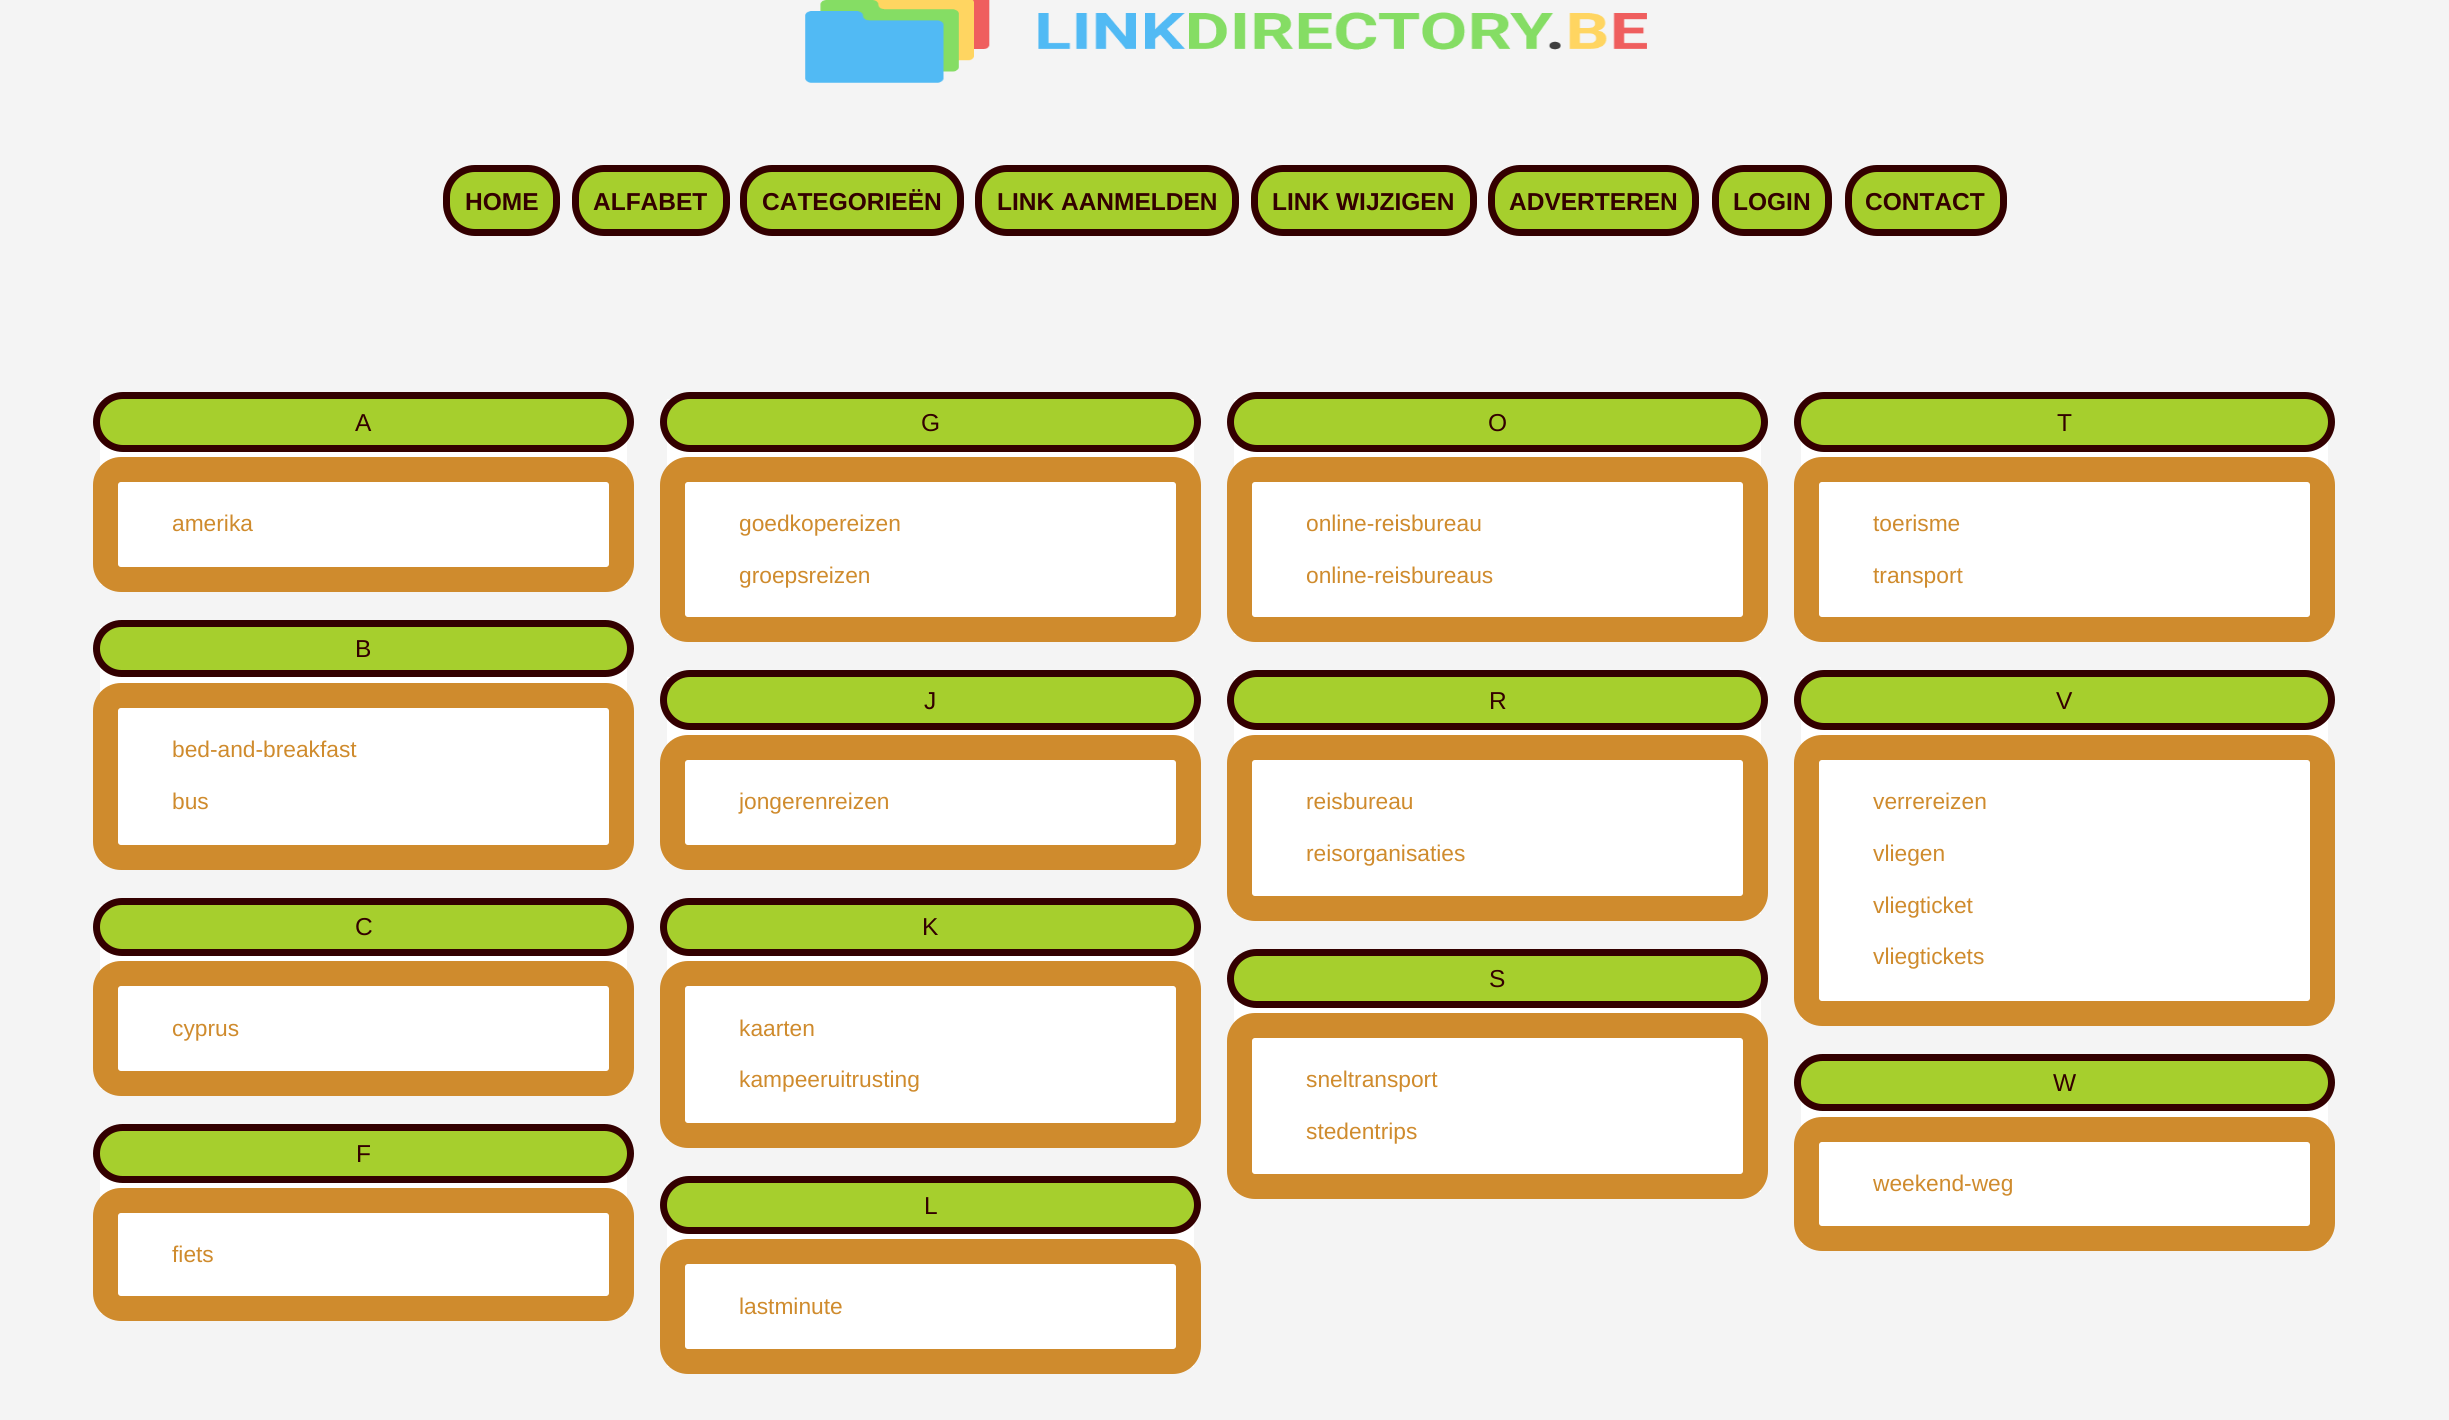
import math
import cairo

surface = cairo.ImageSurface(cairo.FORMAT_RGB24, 2449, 1420)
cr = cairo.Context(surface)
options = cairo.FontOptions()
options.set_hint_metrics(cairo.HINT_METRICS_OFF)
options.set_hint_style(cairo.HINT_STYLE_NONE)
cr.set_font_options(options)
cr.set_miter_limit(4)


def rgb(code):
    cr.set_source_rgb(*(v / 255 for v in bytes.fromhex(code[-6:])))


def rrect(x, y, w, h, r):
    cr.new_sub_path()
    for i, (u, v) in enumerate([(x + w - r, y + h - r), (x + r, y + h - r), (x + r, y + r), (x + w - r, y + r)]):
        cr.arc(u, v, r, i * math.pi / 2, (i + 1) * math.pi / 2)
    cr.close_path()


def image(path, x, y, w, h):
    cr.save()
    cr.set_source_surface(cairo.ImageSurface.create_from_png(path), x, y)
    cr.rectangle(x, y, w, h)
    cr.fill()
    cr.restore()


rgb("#f4f4f4")
cr.paint()
image("img/1.png", 805, 0, 842, 83)
rrect(447, 169, 109, 63, 28)
rgb("#330000")
cr.set_line_width(8)
cr.stroke()
rgb("#a6cf2d")
rrect(450, 172, 103, 57, 25)
cr.fill()
rrect(576, 169, 150, 63, 28)
rgb("#330000")
cr.stroke()
rrect(578, 170, 146, 61, 26)
cr.set_line_width(4)
cr.stroke()
rgb("#a6cf2d")
rrect(579, 172, 144, 57, 25)
cr.fill()
rrect(744, 169, 216, 63, 28)
rgb("#330000")
cr.set_line_width(8)
cr.stroke()
rrect(744.5, 168.5, 216, 64, 27.5)
cr.set_line_width(5)
cr.stroke()
rrect(746, 170, 213, 61, 26)
cr.set_line_width(4)
cr.stroke()
rgb("#a6cf2d")
rrect(747, 172, 210, 57, 25)
cr.fill()
rrect(979, 169, 256, 63, 28)
rgb("#330000")
cr.set_line_width(8)
cr.stroke()
rgb("#a6cf2d")
rrect(982, 172, 250, 57, 25)
cr.fill()
rrect(1255, 169, 218, 63, 28)
rgb("#330000")
cr.stroke()
rrect(1257, 170, 215, 61, 26)
cr.set_line_width(4)
cr.stroke()
rgb("#a6cf2d")
rrect(1258, 172, 212, 57, 25)
cr.fill()
rrect(1492, 169, 203, 63, 28)
rgb("#330000")
cr.set_line_width(8)
cr.stroke()
rrect(1491.5, 168.5, 204, 64, 27.5)
cr.set_line_width(5)
cr.stroke()
rgb("#a6cf2d")
rrect(1495, 172, 197, 57, 25)
cr.fill()
rrect(1716, 169, 112, 63, 28)
rgb("#330000")
cr.set_line_width(8)
cr.stroke()
rrect(1715.5, 168.5, 113, 64, 27.5)
cr.set_line_width(5)
cr.stroke()
rgb("#a6cf2d")
rrect(1719, 172, 106, 57, 25)
cr.fill()
rrect(1849, 169, 154, 63, 28)
rgb("#330000")
cr.set_line_width(8)
cr.stroke()
rrect(1848.5, 168.5, 155, 64, 27.5)
cr.set_line_width(5)
cr.stroke()
rgb("#a6cf2d")
rrect(1852, 172, 148, 57, 25)
cr.fill()
rgb("#ffffff")
cr.rectangle(100, 399, 527, 186)
cr.fill()
rrect(97, 396, 533, 52, 26)
rgb("#330000")
cr.set_line_width(8)
cr.stroke()
rrect(98, 398, 530, 48, 24)
cr.set_line_width(4)
cr.stroke()
rgb("#a6cf2d")
rrect(100, 399, 527, 46, 23)
cr.fill()
rrect(97, 461, 533, 127, 24)
rgb("#cf8b2d")
cr.set_line_width(8)
cr.stroke()
rrect(98, 462, 530, 124, 23)
cr.set_line_width(4)
cr.stroke()
rgb("#ffffff")
rrect(109, 473, 509, 103, 12)
cr.fill_preserve()
rgb("#cf8b2d")
cr.set_line_width(18)
cr.stroke()
rgb("#ffffff")
cr.rectangle(667, 399, 527, 236)
cr.fill()
rrect(664, 396, 533, 52, 26)
rgb("#330000")
cr.set_line_width(8)
cr.stroke()
rrect(665, 398, 530, 48, 24)
cr.set_line_width(4)
cr.stroke()
rgb("#a6cf2d")
rrect(667, 399, 527, 46, 23)
cr.fill()
rrect(664, 461, 533, 177, 24)
rgb("#cf8b2d")
cr.set_line_width(8)
cr.stroke()
rrect(665, 462, 530, 175, 23)
cr.set_line_width(4)
cr.stroke()
rgb("#ffffff")
rrect(676, 473, 509, 153, 12)
cr.fill_preserve()
rgb("#cf8b2d")
cr.set_line_width(18)
cr.stroke()
rgb("#ffffff")
cr.rectangle(1234, 399, 527, 236)
cr.fill()
rrect(1231, 396, 533, 52, 26)
rgb("#330000")
cr.set_line_width(8)
cr.stroke()
rrect(1232, 398, 530, 48, 24)
cr.set_line_width(4)
cr.stroke()
rgb("#a6cf2d")
rrect(1234, 399, 527, 46, 23)
cr.fill()
rrect(1231, 461, 533, 177, 24)
rgb("#cf8b2d")
cr.set_line_width(8)
cr.stroke()
rrect(1232, 462, 530, 175, 23)
cr.set_line_width(4)
cr.stroke()
rgb("#ffffff")
rrect(1243, 473, 509, 153, 12)
cr.fill_preserve()
rgb("#cf8b2d")
cr.set_line_width(18)
cr.stroke()
rgb("#ffffff")
cr.rectangle(1801, 399, 527, 236)
cr.fill()
rrect(1798, 396, 533, 52, 26)
rgb("#330000")
cr.set_line_width(8)
cr.stroke()
rrect(1799, 398, 530, 48, 24)
cr.set_line_width(4)
cr.stroke()
rgb("#a6cf2d")
rrect(1801, 399, 527, 46, 23)
cr.fill()
rrect(1798, 461, 533, 177, 24)
rgb("#cf8b2d")
cr.set_line_width(8)
cr.stroke()
rrect(1799, 462, 530, 175, 23)
cr.set_line_width(4)
cr.stroke()
rgb("#ffffff")
rrect(1810, 473, 509, 153, 12)
cr.fill_preserve()
rgb("#cf8b2d")
cr.set_line_width(18)
cr.stroke()
rgb("#ffffff")
cr.rectangle(100, 627, 527, 236)
cr.fill()
rrect(97, 624, 533, 49, 24.5)
rgb("#330000")
cr.set_line_width(8)
cr.stroke()
rrect(98, 625, 530, 47, 23.5)
cr.set_line_width(4)
cr.stroke()
rgb("#a6cf2d")
rrect(100, 627, 527, 43, 21.5)
cr.fill()
rrect(97, 687, 533, 179, 24)
rgb("#cf8b2d")
cr.set_line_width(8)
cr.stroke()
rrect(98, 688, 530, 176, 23)
cr.set_line_width(4)
cr.stroke()
rgb("#ffffff")
rrect(109, 699, 509, 155, 12)
cr.fill_preserve()
rgb("#cf8b2d")
cr.set_line_width(18)
cr.stroke()
rgb("#ffffff")
cr.rectangle(667, 677, 527, 186)
cr.fill()
rrect(664, 674, 533, 52, 26)
rgb("#330000")
cr.set_line_width(8)
cr.stroke()
rrect(665, 676, 530, 48, 24)
cr.set_line_width(4)
cr.stroke()
rgb("#a6cf2d")
rrect(667, 677, 527, 46, 23)
cr.fill()
rrect(664, 739, 533, 127, 24)
rgb("#cf8b2d")
cr.set_line_width(8)
cr.stroke()
rrect(665, 741, 530, 123, 23)
cr.set_line_width(4)
cr.stroke()
rgb("#ffffff")
rrect(676, 751, 509, 103, 12)
cr.fill_preserve()
rgb("#cf8b2d")
cr.set_line_width(18)
cr.stroke()
rgb("#ffffff")
cr.rectangle(1234, 677, 527, 237)
cr.fill()
rrect(1231, 674, 533, 52, 26)
rgb("#330000")
cr.set_line_width(8)
cr.stroke()
rrect(1232, 676, 530, 48, 24)
cr.set_line_width(4)
cr.stroke()
rgb("#a6cf2d")
rrect(1234, 677, 527, 46, 23)
cr.fill()
rrect(1231, 739, 533, 178, 24)
rgb("#cf8b2d")
cr.set_line_width(8)
cr.stroke()
rrect(1232, 741, 530, 174, 23)
cr.set_line_width(4)
cr.stroke()
rgb("#ffffff")
rrect(1243, 751, 509, 154, 12)
cr.fill_preserve()
rgb("#cf8b2d")
cr.set_line_width(18)
cr.stroke()
rgb("#ffffff")
cr.rectangle(1801, 677, 527, 342)
cr.fill()
rrect(1798, 674, 533, 52, 26)
rgb("#330000")
cr.set_line_width(8)
cr.stroke()
rrect(1799, 676, 530, 48, 24)
cr.set_line_width(4)
cr.stroke()
rgb("#a6cf2d")
rrect(1801, 677, 527, 46, 23)
cr.fill()
rrect(1798, 739, 533, 283, 24)
rgb("#cf8b2d")
cr.set_line_width(8)
cr.stroke()
rrect(1799, 741, 530, 279, 23)
cr.set_line_width(4)
cr.stroke()
rgb("#ffffff")
rrect(1810, 751, 509, 259, 12)
cr.fill_preserve()
rgb("#cf8b2d")
cr.set_line_width(18)
cr.stroke()
rgb("#ffffff")
cr.rectangle(100, 905, 527, 184)
cr.fill()
rrect(97, 902, 533, 50, 25)
rgb("#330000")
cr.set_line_width(8)
cr.stroke()
rrect(98, 903, 530, 47, 23.5)
cr.set_line_width(4)
cr.stroke()
rgb("#a6cf2d")
rrect(100, 905, 527, 44, 22)
cr.fill()
rrect(97, 965, 533, 127, 24)
rgb("#cf8b2d")
cr.set_line_width(8)
cr.stroke()
rrect(98, 966, 530, 124, 23)
cr.set_line_width(4)
cr.stroke()
rgb("#ffffff")
rrect(109, 977, 509, 103, 12)
cr.fill_preserve()
rgb("#cf8b2d")
cr.set_line_width(18)
cr.stroke()
rgb("#ffffff")
cr.rectangle(667, 905, 527, 236)
cr.fill()
rrect(664, 902, 533, 50, 25)
rgb("#330000")
cr.set_line_width(8)
cr.stroke()
rrect(665, 903, 530, 47, 23.5)
cr.set_line_width(4)
cr.stroke()
rgb("#a6cf2d")
rrect(667, 905, 527, 44, 22)
cr.fill()
rrect(664, 965, 533, 179, 24)
rgb("#cf8b2d")
cr.set_line_width(8)
cr.stroke()
rrect(665, 966, 530, 177, 23)
cr.set_line_width(4)
cr.stroke()
rgb("#ffffff")
rrect(676, 977, 509, 155, 12)
cr.fill_preserve()
rgb("#cf8b2d")
cr.set_line_width(18)
cr.stroke()
rgb("#ffffff")
cr.rectangle(1234, 956, 527, 236)
cr.fill()
rrect(1231, 953, 533, 51, 25.5)
rgb("#330000")
cr.set_line_width(8)
cr.stroke()
rrect(1231.5, 952.5, 532, 51, 25.5)
cr.set_line_width(5)
cr.stroke()
rrect(1232, 954, 530, 49, 24.5)
cr.set_line_width(4)
cr.stroke()
rgb("#a6cf2d")
rrect(1234, 956, 527, 45, 22.5)
cr.fill()
rrect(1231, 1017, 533, 178, 24)
rgb("#cf8b2d")
cr.set_line_width(8)
cr.stroke()
rrect(1232, 1019, 530, 174, 23)
cr.set_line_width(4)
cr.stroke()
rgb("#ffffff")
rrect(1243, 1029, 509, 154, 12)
cr.fill_preserve()
rgb("#cf8b2d")
cr.set_line_width(18)
cr.stroke()
rgb("#ffffff")
cr.rectangle(1801, 1061, 527, 183)
cr.fill()
rrect(1798, 1058, 533, 49, 24.5)
rgb("#330000")
cr.set_line_width(8)
cr.stroke()
rrect(1799, 1059, 530, 47, 23.5)
cr.set_line_width(4)
cr.stroke()
rgb("#a6cf2d")
rrect(1801, 1061, 527, 43, 21.5)
cr.fill()
rrect(1798, 1121, 533, 126, 24)
rgb("#cf8b2d")
cr.set_line_width(8)
cr.stroke()
rrect(1799, 1122, 530, 124, 23)
cr.set_line_width(4)
cr.stroke()
rgb("#ffffff")
rrect(1810, 1133, 509, 102, 12)
cr.fill_preserve()
rgb("#cf8b2d")
cr.set_line_width(18)
cr.stroke()
rgb("#ffffff")
cr.rectangle(100, 1131, 527, 183)
cr.fill()
rrect(97, 1128, 533, 51, 25.5)
rgb("#330000")
cr.set_line_width(8)
cr.stroke()
rrect(97.5, 1127.5, 532, 51, 25.5)
cr.set_line_width(5)
cr.stroke()
rrect(98, 1129, 530, 49, 24.5)
cr.set_line_width(4)
cr.stroke()
rgb("#a6cf2d")
rrect(100, 1131, 527, 45, 22.5)
cr.fill()
rrect(97, 1192, 533, 125, 24)
rgb("#cf8b2d")
cr.set_line_width(8)
cr.stroke()
rrect(98, 1194, 530, 122, 23)
cr.set_line_width(4)
cr.stroke()
rgb("#ffffff")
rrect(109, 1204, 509, 101, 12)
cr.fill_preserve()
rgb("#cf8b2d")
cr.set_line_width(18)
cr.stroke()
rgb("#ffffff")
cr.rectangle(667, 1183, 527, 184)
cr.fill()
rrect(664, 1180, 533, 50, 25)
rgb("#330000")
cr.set_line_width(8)
cr.stroke()
rrect(665, 1182, 530, 46, 23)
cr.set_line_width(4)
cr.stroke()
rgb("#a6cf2d")
rrect(667, 1183, 527, 44, 22)
cr.fill()
rrect(664, 1243, 533, 127, 24)
rgb("#cf8b2d")
cr.set_line_width(8)
cr.stroke()
rrect(665, 1245, 530, 123, 23)
cr.set_line_width(4)
cr.stroke()
rgb("#ffffff")
rrect(676, 1255, 509, 103, 12)
cr.fill_preserve()
rgb("#cf8b2d")
cr.set_line_width(18)
cr.stroke()
cr.select_font_face("Liberation Sans", cairo.FONT_SLANT_NORMAL, cairo.FONT_WEIGHT_BOLD)
cr.set_font_size(24.5)
rgb("#330000")
for x, y, s in [
    (465, 210, "HOME"),
    (593, 210, "ALFABET"),
    (762, 210, "CATEGORIEËN"),
    (997, 210, "LINK AANMELDEN"),
    (1272, 210, "LINK WIJZIGEN"),
    (1509, 210, "ADVERTEREN"),
    (1733, 210, "LOGIN"),
    (1865, 210, "CONTACT"),
]:
    cr.move_to(x, y)
    cr.show_text(s)
cr.select_font_face("Liberation Sans")
cr.move_to(355, 431)
cr.show_text("A")
cr.set_font_size(22.75)
rgb("#cf8b2d")
cr.move_to(172, 531)
cr.show_text("amerika")
cr.set_font_size(24.5)
rgb("#330000")
cr.move_to(921, 431)
cr.show_text("G")
cr.set_font_size(22.75)
rgb("#cf8b2d")
cr.move_to(739, 531)
cr.show_text("goedkopereizen")
cr.move_to(739, 583)
cr.show_text("groepsreizen")
cr.set_font_size(24.5)
rgb("#330000")
cr.move_to(1488, 431)
cr.show_text("O")
cr.set_font_size(22.75)
rgb("#cf8b2d")
cr.move_to(1306, 531)
cr.show_text("online-reisbureau")
cr.move_to(1306, 583)
cr.show_text("online-reisbureaus")
cr.set_font_size(24.5)
rgb("#330000")
cr.move_to(2057, 431)
cr.show_text("T")
cr.set_font_size(22.75)
rgb("#cf8b2d")
cr.move_to(1873, 531)
cr.show_text("toerisme")
cr.move_to(1873, 583)
cr.show_text("transport")
cr.set_font_size(24.5)
rgb("#330000")
cr.move_to(355, 657)
cr.show_text("B")
cr.set_font_size(22.75)
rgb("#cf8b2d")
cr.move_to(172, 757)
cr.show_text("bed-and-breakfast")
cr.move_to(172, 809)
cr.show_text("bus")
cr.set_font_size(24.5)
rgb("#330000")
cr.move_to(924, 709)
cr.show_text("J")
cr.set_font_size(22.75)
rgb("#cf8b2d")
cr.move_to(739, 809)
cr.show_text("jongerenreizen")
cr.set_font_size(24.5)
rgb("#330000")
cr.move_to(1489, 709)
cr.show_text("R")
cr.set_font_size(22.75)
rgb("#cf8b2d")
cr.move_to(1306, 809)
cr.show_text("reisbureau")
cr.move_to(1306, 861)
cr.show_text("reisorganisaties")
cr.set_font_size(24.5)
rgb("#330000")
cr.move_to(2056, 709)
cr.show_text("V")
cr.set_font_size(22.75)
rgb("#cf8b2d")
for x, y, s in [
    (1873, 809, "verrereizen"),
    (1873, 861, "vliegen"),
    (1873, 913, "vliegticket"),
    (1873, 964, "vliegtickets"),
]:
    cr.move_to(x, y)
    cr.show_text(s)
cr.set_font_size(24.5)
rgb("#330000")
cr.move_to(355, 935)
cr.show_text("C")
cr.set_font_size(22.75)
rgb("#cf8b2d")
cr.move_to(172, 1036)
cr.show_text("cyprus")
cr.set_font_size(24.5)
rgb("#330000")
cr.move_to(922, 935)
cr.show_text("K")
cr.set_font_size(22.75)
rgb("#cf8b2d")
cr.move_to(739, 1036)
cr.show_text("kaarten")
cr.move_to(739, 1087)
cr.show_text("kampeeruitrusting")
cr.set_font_size(24.5)
rgb("#330000")
cr.move_to(1489, 987)
cr.show_text("S")
cr.set_font_size(22.75)
rgb("#cf8b2d")
cr.move_to(1306, 1087)
cr.show_text("sneltransport")
cr.move_to(1306, 1139)
cr.show_text("stedentrips")
cr.set_font_size(24.5)
rgb("#330000")
cr.move_to(2053, 1091)
cr.show_text("W")
cr.set_font_size(22.75)
rgb("#cf8b2d")
cr.move_to(1873, 1191)
cr.show_text("weekend-weg")
cr.set_font_size(24.5)
rgb("#330000")
cr.move_to(356, 1162)
cr.show_text("F")
cr.set_font_size(22.75)
rgb("#cf8b2d")
cr.move_to(172, 1262)
cr.show_text("fiets")
cr.set_font_size(24.5)
rgb("#330000")
cr.move_to(924, 1214)
cr.show_text("L")
cr.set_font_size(22.75)
rgb("#cf8b2d")
cr.move_to(739, 1314)
cr.show_text("lastminute")
surface.write_to_png("page.png")
